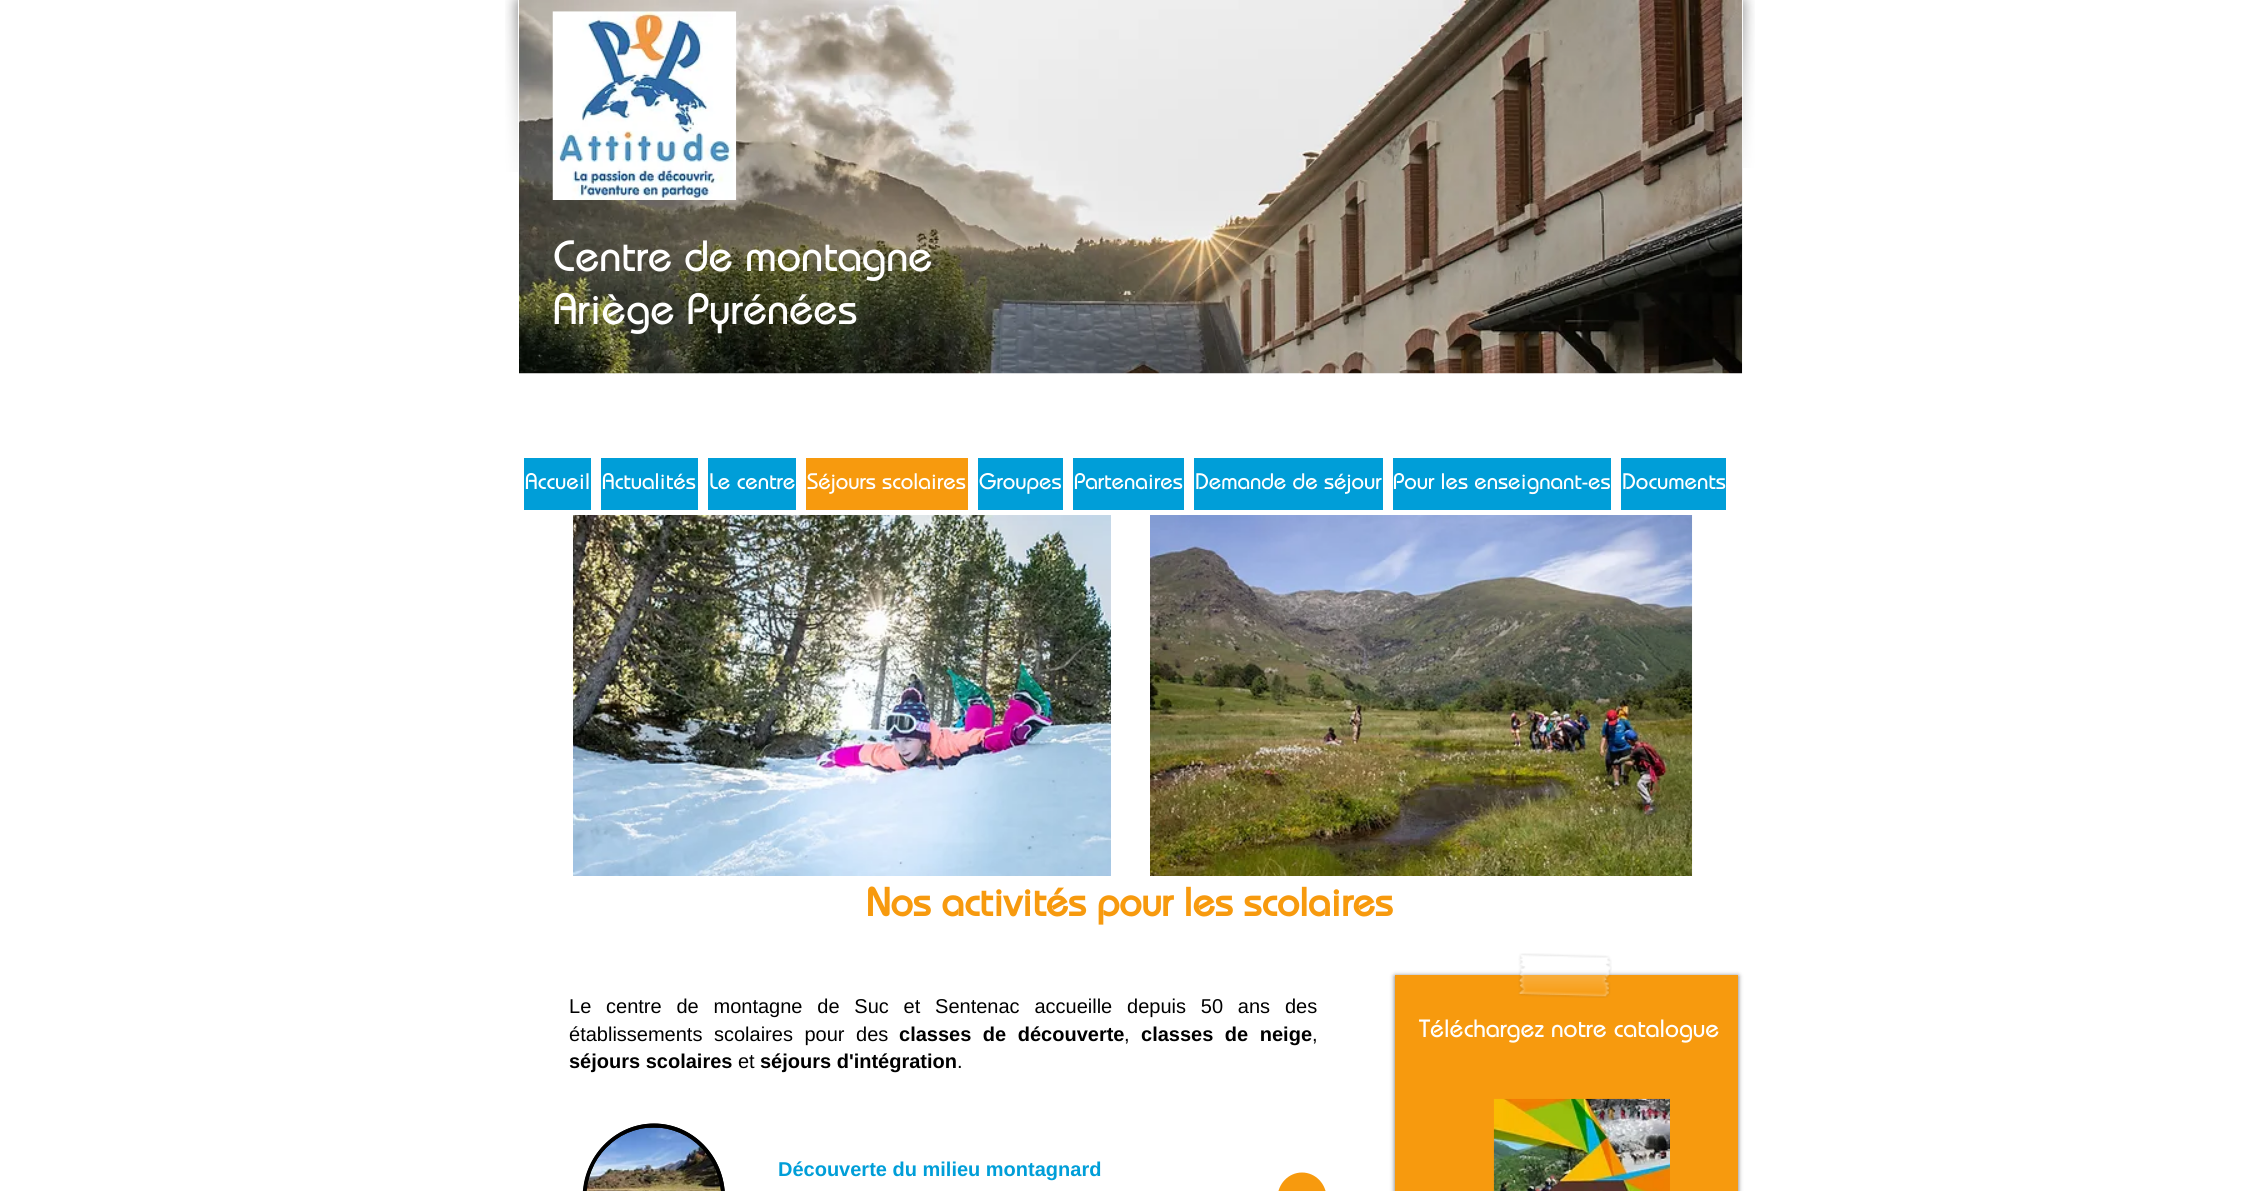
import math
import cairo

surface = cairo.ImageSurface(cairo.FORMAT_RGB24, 2260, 1191)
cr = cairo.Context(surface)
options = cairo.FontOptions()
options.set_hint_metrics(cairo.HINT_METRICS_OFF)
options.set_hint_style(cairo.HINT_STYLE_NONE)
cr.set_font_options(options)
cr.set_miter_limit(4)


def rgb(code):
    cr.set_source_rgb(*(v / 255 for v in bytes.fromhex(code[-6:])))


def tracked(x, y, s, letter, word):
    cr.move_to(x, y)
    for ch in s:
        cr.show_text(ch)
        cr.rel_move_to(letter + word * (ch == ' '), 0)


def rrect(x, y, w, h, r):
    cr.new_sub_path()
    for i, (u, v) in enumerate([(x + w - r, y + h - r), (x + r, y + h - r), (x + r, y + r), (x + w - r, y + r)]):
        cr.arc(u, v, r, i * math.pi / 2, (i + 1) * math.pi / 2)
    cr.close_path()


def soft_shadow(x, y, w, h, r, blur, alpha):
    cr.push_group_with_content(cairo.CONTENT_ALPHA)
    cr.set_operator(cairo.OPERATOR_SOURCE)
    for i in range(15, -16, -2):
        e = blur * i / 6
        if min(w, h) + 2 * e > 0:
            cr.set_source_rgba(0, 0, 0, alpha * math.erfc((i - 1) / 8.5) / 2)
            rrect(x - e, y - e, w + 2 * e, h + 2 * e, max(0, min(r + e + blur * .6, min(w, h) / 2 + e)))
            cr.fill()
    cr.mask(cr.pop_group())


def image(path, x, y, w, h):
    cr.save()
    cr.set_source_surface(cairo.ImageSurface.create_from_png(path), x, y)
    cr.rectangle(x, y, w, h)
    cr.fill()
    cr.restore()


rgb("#ffffff")
cr.paint()
image("img/1.png", 505, 0, 13, 172)
image("img/2.png", 1743, 0, 12, 168)
image("img/5.png", 1742, 0, 1, 315)
image("img/3.png", 519, 0, 1224, 374)
image("img/4.png", 552, 11, 185, 189)
for x, y, w, h, color in [
    (524, 458, 67, 52, "#009ed8"),
    (601, 458, 97, 52, "#009ed8"),
    (708, 458, 88, 52, "#009ed8"),
    (806, 458, 162, 52, "#f79a0e"),
    (978, 458, 85, 52, "#009ed8"),
    (1073, 458, 111, 52, "#009ed8"),
    (1194, 458, 189, 52, "#009ed8"),
    (1393, 458, 218, 52, "#009ed8"),
    (1621, 458, 105, 52, "#009ed8"),
]:
    rgb(color)
    cr.rectangle(x, y, w, h)
    cr.fill()
image("img/6.png", 573, 515, 538, 361)
image("img/7.png", 1150, 515, 543, 361)
rgb("#000000")
soft_shadow(1395, 976, 343, 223, 0, 2.5, 0.6)
rgb("#f79a0e")
cr.rectangle(1395, 975, 343, 216)
cr.fill()
image("img/8.png", 1518, 953, 94, 45)
image("img/9.png", 1493, 1098, 177, 93)
rgb("#000000")
cr.new_path()
cr.move_to(654, 1123.5)
cr.curve_to(693, 1123.5, 725, 1156.5, 725, 1197.5)
cr.curve_to(725, 1238.5, 693, 1271.5, 654, 1271.5)
cr.curve_to(615, 1271.5, 583, 1238.5, 583, 1197.5)
cr.curve_to(583, 1156.5, 615, 1123.5, 654, 1123.5)
cr.close_path()
cr.fill()
cr.new_path()
cr.move_to(654, 1125.5)
cr.curve_to(692, 1125.5, 723, 1158, 723, 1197.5)
cr.curve_to(723, 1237, 692, 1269.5, 654, 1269.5)
cr.curve_to(615.5, 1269.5, 584.5, 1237, 584.5, 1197.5)
cr.curve_to(584.5, 1158, 615.5, 1125.5, 654, 1125.5)
cr.close_path()
cr.set_line_width(3.8)
cr.stroke()
image("img/10.png", 586, 1127, 135, 64)
rgb("#f79a0e")
cr.new_path()
cr.move_to(1302, 1172.5)
cr.curve_to(1315.5, 1172.5, 1326.5, 1184, 1326.5, 1198)
cr.curve_to(1326.5, 1212, 1315.5, 1223.5, 1302, 1223.5)
cr.curve_to(1288.5, 1223.5, 1277.5, 1212, 1277.5, 1198)
cr.curve_to(1277.5, 1184, 1288.5, 1172.5, 1302, 1172.5)
cr.close_path()
cr.fill()
cr.select_font_face("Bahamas")
cr.set_font_size(43.75)
rgb("#ffffff")
cr.move_to(553, 271)
cr.show_text("Centre de montagne")
cr.move_to(553, 324)
cr.show_text("Ariège Pyrénées")
cr.set_font_size(22.5)
for x, y, s in [
    (525, 489, "Accueil"),
    (602, 489, "Actualités"),
    (709, 489, "Le centre"),
    (807, 489, "Séjours scolaires"),
    (979, 489, "Groupes"),
    (1074, 489, "Partenaires"),
    (1195, 489, "Demande de séjour"),
    (1393, 489, "Pour les enseignant-es"),
    (1622, 489, "Documents"),
]:
    cr.move_to(x, y)
    cr.show_text(s)
cr.select_font_face("Bahamas", cairo.FONT_SLANT_NORMAL, cairo.FONT_WEIGHT_BOLD)
cr.set_font_size(40)
rgb("#f79a0e")
cr.move_to(866, 916)
cr.show_text("Nos activités pour les scolaires")
cr.select_font_face("Liberation Sans")
cr.set_font_size(20)
rgb("#000000")
tracked(569, 1013, "Le centre de montagne de Suc et Sentenac accueille depuis 50 ans des", 0, 9.25)
tracked(569, 1041, "établissements scolaires pour des", 0, 6)
cr.select_font_face("Liberation Sans", cairo.FONT_SLANT_NORMAL, cairo.FONT_WEIGHT_BOLD)
tracked(899, 1041, "classes de découverte", 0, 6)
cr.select_font_face("Liberation Sans")
cr.move_to(1124, 1041)
cr.show_text(",")
cr.select_font_face("Liberation Sans", cairo.FONT_SLANT_NORMAL, cairo.FONT_WEIGHT_BOLD)
tracked(1141, 1041, "classes de neige", 0, 6)
cr.select_font_face("Liberation Sans")
cr.move_to(1312, 1041)
cr.show_text(",")
cr.select_font_face("Liberation Sans", cairo.FONT_SLANT_NORMAL, cairo.FONT_WEIGHT_BOLD)
cr.move_to(569, 1068)
cr.show_text("séjours scolaires")
cr.select_font_face("Liberation Sans")
cr.move_to(738, 1068)
cr.show_text("et")
cr.select_font_face("Liberation Sans", cairo.FONT_SLANT_NORMAL, cairo.FONT_WEIGHT_BOLD)
cr.move_to(760, 1068)
cr.show_text("séjours d'intégration")
cr.select_font_face("Liberation Sans")
cr.move_to(957, 1068)
cr.show_text(".")
cr.select_font_face("Bahamas")
cr.set_font_size(25)
rgb("#ffffff")
cr.move_to(1419, 1037)
cr.show_text("Téléchargez notre catalogue")
cr.select_font_face("Liberation Sans", cairo.FONT_SLANT_NORMAL, cairo.FONT_WEIGHT_BOLD)
cr.set_font_size(20)
rgb("#009ed8")
cr.move_to(778, 1176)
cr.show_text("Découverte du milieu montagnard")
surface.write_to_png("page.png")
